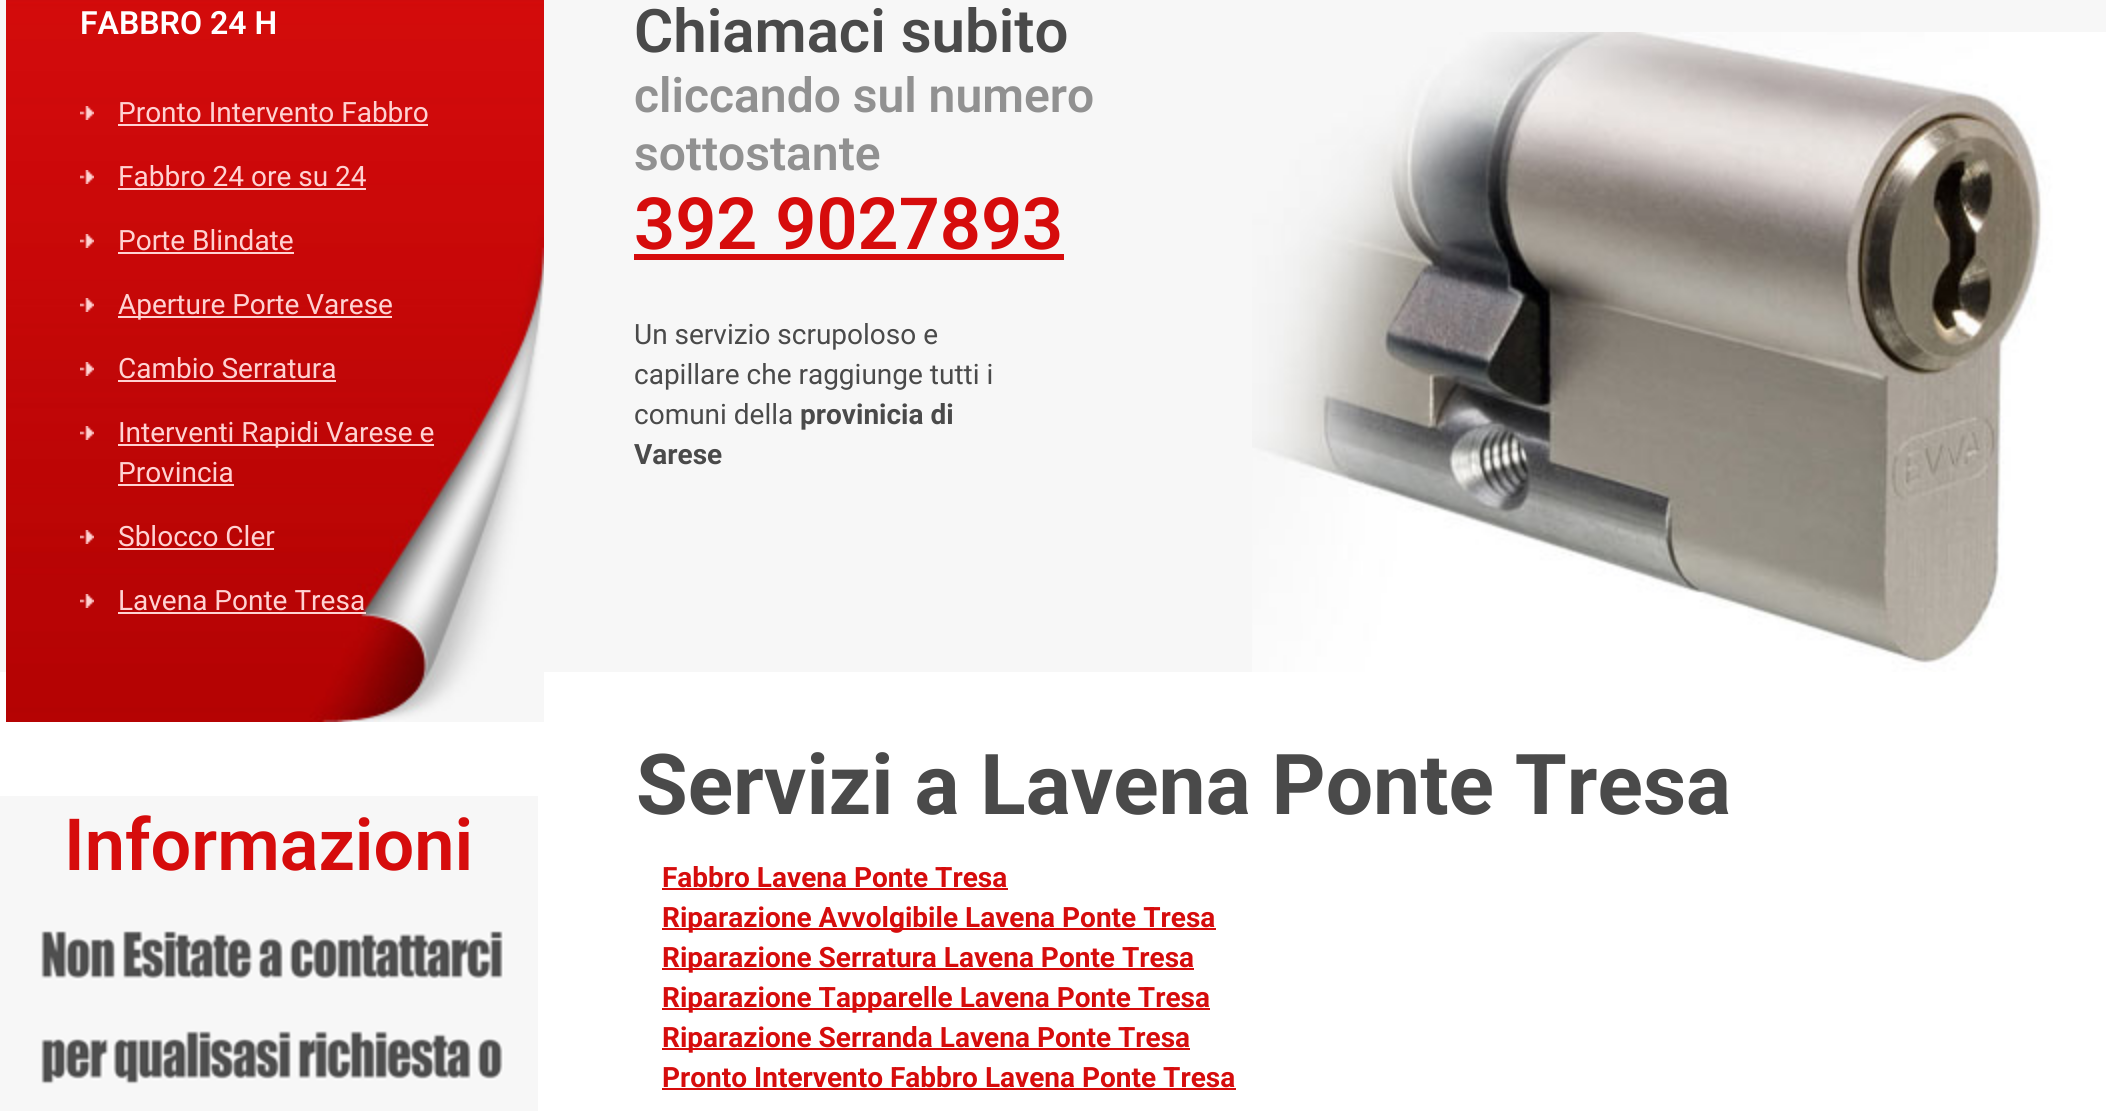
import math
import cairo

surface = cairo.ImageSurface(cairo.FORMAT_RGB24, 2106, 1111)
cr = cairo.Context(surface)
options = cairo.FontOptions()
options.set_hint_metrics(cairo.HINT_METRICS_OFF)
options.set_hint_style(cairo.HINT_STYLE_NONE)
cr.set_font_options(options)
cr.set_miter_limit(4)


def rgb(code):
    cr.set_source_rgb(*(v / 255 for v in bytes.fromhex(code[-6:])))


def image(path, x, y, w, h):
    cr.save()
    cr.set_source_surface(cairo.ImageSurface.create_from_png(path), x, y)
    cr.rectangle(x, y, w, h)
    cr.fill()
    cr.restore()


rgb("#ffffff")
cr.paint()
rgb("#f7f7f7")
cr.rectangle(0, 0, 2106, 672)
cr.fill()
image("img/1.png", 1252, 32, 854, 640)
image("img/2.png", 6, 0, 538, 722)
image("img/3.png", 80, 106, 14, 14)
rgb("#ffd2d2")
cr.rectangle(118, 124, 310, 2)
cr.fill()
image("img/4.png", 80, 170, 14, 14)
cr.rectangle(118, 188, 248, 2)
cr.fill()
image("img/5.png", 80, 234, 14, 14)
cr.rectangle(118, 252, 176, 2)
cr.fill()
image("img/6.png", 80, 298, 14, 14)
cr.rectangle(118, 316, 274, 2)
cr.fill()
image("img/7.png", 80, 362, 14, 14)
cr.rectangle(118, 380, 218, 2)
cr.fill()
image("img/8.png", 80, 426, 14, 14)
cr.rectangle(118, 444, 316, 2)
cr.fill()
cr.rectangle(118, 484, 116, 2)
cr.fill()
image("img/9.png", 80, 530, 14, 14)
cr.rectangle(118, 548, 156, 2)
cr.fill()
image("img/10.png", 80, 594, 14, 14)
for x, y, w, h, color in [
    (118, 612, 248, 2, "#ffd2d2"),
    (634, 254, 430, 6, "#d60c0c"),
    (0, 796, 538, 315, "#f7f7f7"),
]:
    rgb(color)
    cr.rectangle(x, y, w, h)
    cr.fill()
image("img/11.png", 41, 931, 463, 153)
for x, y, w, h, color in [
    (662, 888, 346, 2, "#d60c0c"),
    (662, 928, 554, 2, "#d60c0c"),
    (662, 968, 532, 2, "#d60c0c"),
    (662, 1008, 548, 2, "#d60c0c"),
    (662, 1048, 528, 2, "#d60c0c"),
    (662, 1088, 574, 2, "#d60c0c"),
]:
    rgb(color)
    cr.rectangle(x, y, w, h)
    cr.fill()
cr.select_font_face("Roboto SemiBold")
cr.set_font_size(32)
rgb("#ffffff")
cr.move_to(80, 34)
cr.show_text("FABBRO 24 H")
cr.select_font_face("Roboto")
cr.set_font_size(28)
rgb("#ffd2d2")
for x, y, s in [
    (118, 122, "Pronto Intervento Fabbro"),
    (118, 186, "Fabbro 24 ore su 24"),
    (118, 250, "Porte Blindate"),
    (118, 314, "Aperture Porte Varese"),
    (118, 378, "Cambio Serratura"),
    (118, 442, "Interventi Rapidi Varese e"),
    (118, 482, "Provincia"),
    (118, 546, "Sblocco Cler"),
    (118, 610, "Lavena Ponte Tresa"),
]:
    cr.move_to(x, y)
    cr.show_text(s)
cr.select_font_face("Roboto SemiBold")
cr.set_font_size(60)
rgb("#4a4a4a")
cr.move_to(634, 52)
cr.show_text("Chiamaci subito")
cr.set_font_size(48)
rgb("#919191")
cr.move_to(634, 112)
cr.show_text("cliccando sul numero")
cr.move_to(634, 170)
cr.show_text("sottostante")
cr.set_font_size(72)
rgb("#d60c0c")
cr.move_to(634, 249)
cr.show_text("392 9027893")
cr.select_font_face("Roboto")
cr.set_font_size(28)
rgb("#4a4a4a")
for x, y, s in [
    (634, 344, "Un servizio scrupoloso e"),
    (634, 384, "capillare che raggiunge tutti i"),
    (634, 424, "comuni della"),
]:
    cr.move_to(x, y)
    cr.show_text(s)
cr.select_font_face("Roboto", cairo.FONT_SLANT_NORMAL, cairo.FONT_WEIGHT_BOLD)
cr.move_to(800, 424)
cr.show_text("provinicia di")
cr.move_to(634, 464)
cr.show_text("Varese")
cr.select_font_face("Roboto SemiBold")
cr.set_font_size(72)
rgb("#d60c0c")
cr.move_to(64, 870)
cr.show_text("Informazioni")
cr.select_font_face("Roboto", cairo.FONT_SLANT_NORMAL, cairo.FONT_WEIGHT_BOLD)
cr.set_font_size(84)
rgb("#4a4a4a")
cr.move_to(636, 814)
cr.show_text("Servizi a Lavena Ponte Tresa")
cr.set_font_size(28)
rgb("#d60c0c")
for x, y, s in [
    (662, 887, "Fabbro Lavena Ponte Tresa"),
    (662, 927, "Riparazione Avvolgibile Lavena Ponte Tresa"),
    (662, 967, "Riparazione Serratura Lavena Ponte Tresa"),
    (662, 1007, "Riparazione Tapparelle Lavena Ponte Tresa"),
    (662, 1047, "Riparazione Serranda Lavena Ponte Tresa"),
    (662, 1087, "Pronto Intervento Fabbro Lavena Ponte Tresa"),
]:
    cr.move_to(x, y)
    cr.show_text(s)
surface.write_to_png("page.png")
